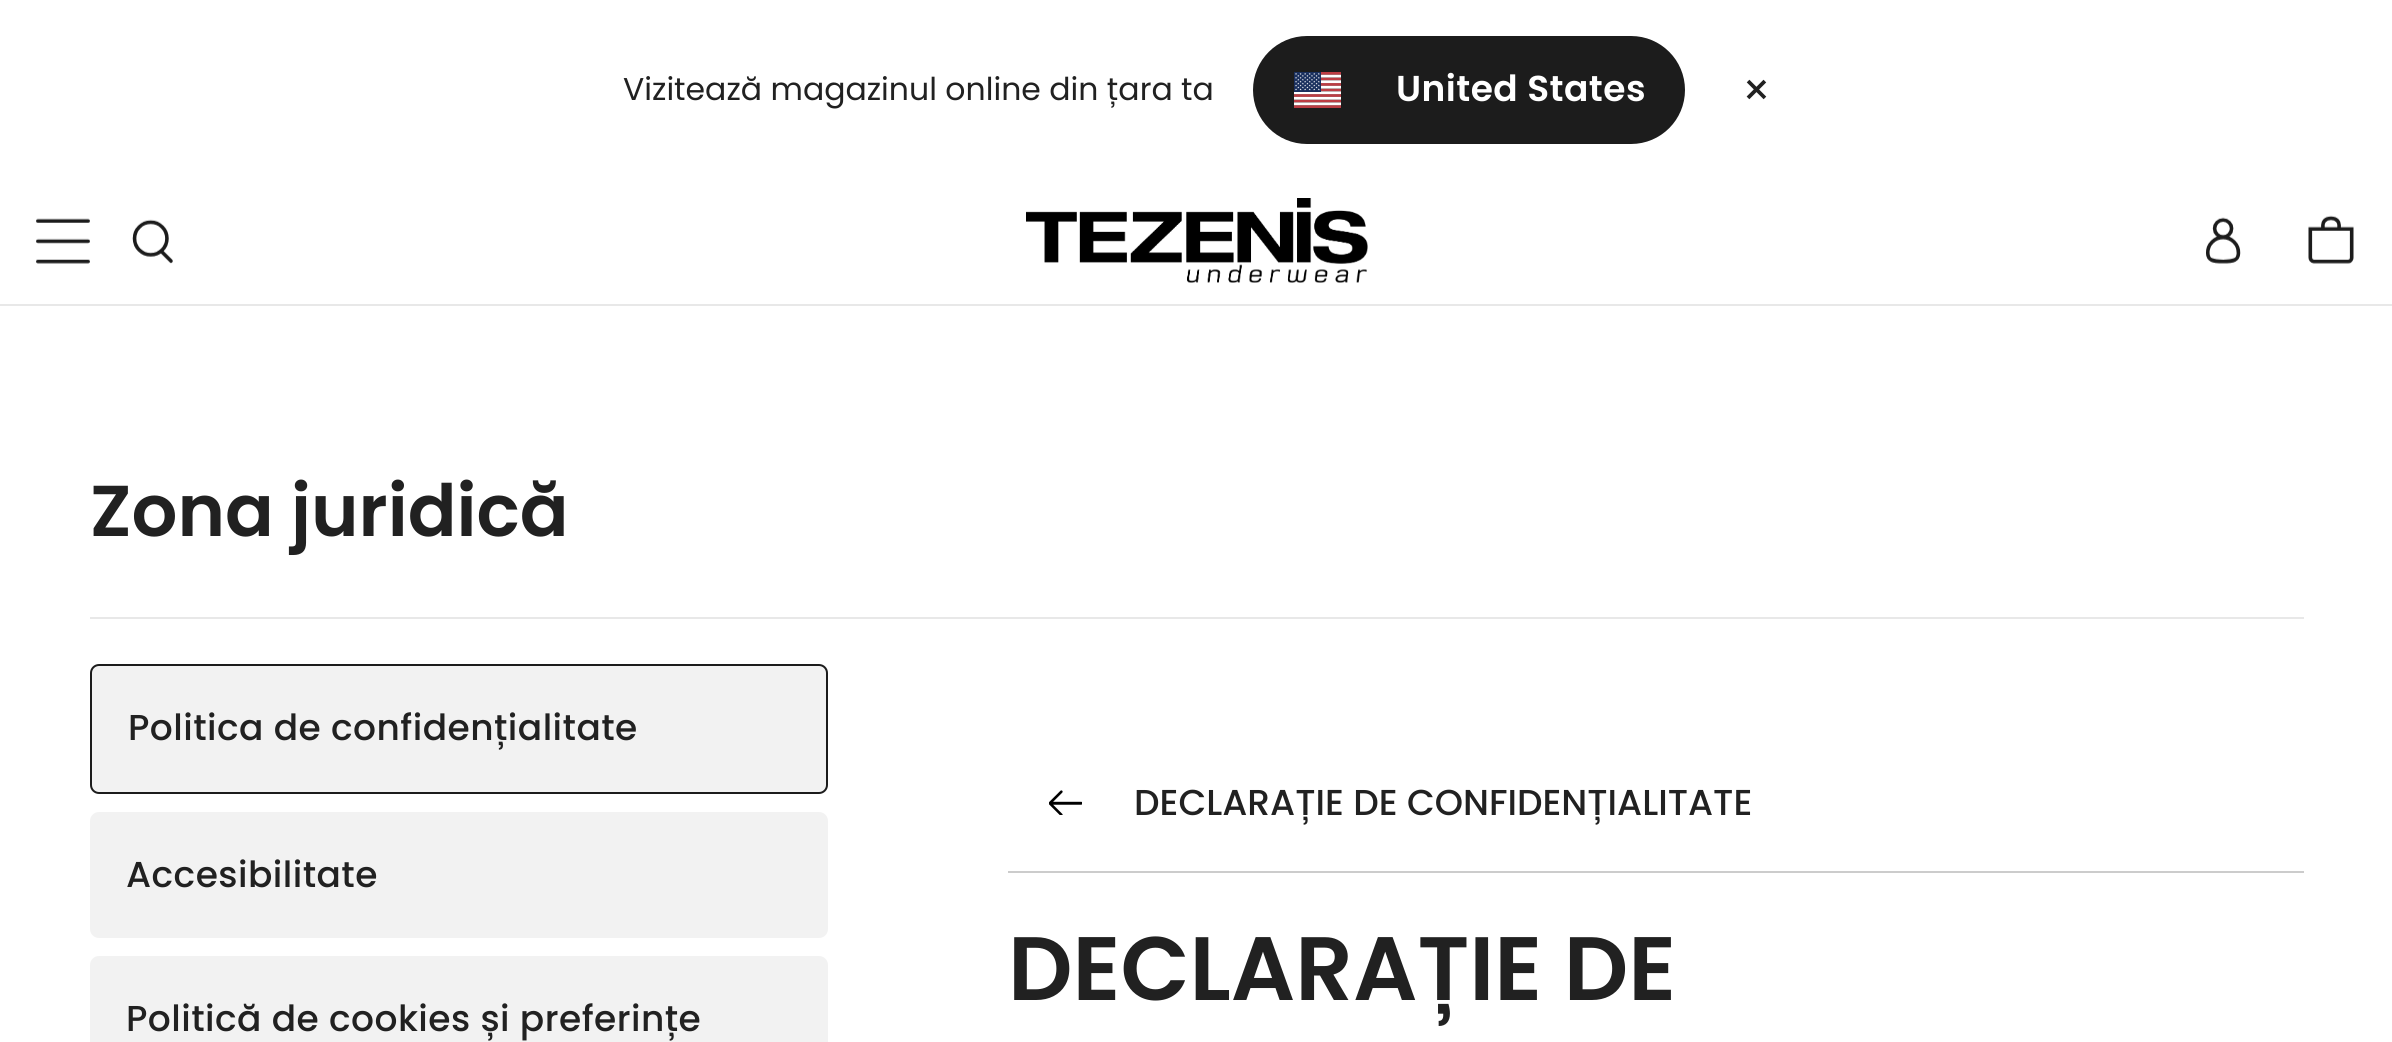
import math
import cairo

surface = cairo.ImageSurface(cairo.FORMAT_RGB24, 2392, 1042)
cr = cairo.Context(surface)
options = cairo.FontOptions()
options.set_hint_metrics(cairo.HINT_METRICS_OFF)
options.set_hint_style(cairo.HINT_STYLE_NONE)
cr.set_font_options(options)
cr.set_miter_limit(4)


def rgb(code):
    cr.set_source_rgb(*(v / 255 for v in bytes.fromhex(code[-6:])))


def tracked(x, y, s, letter, word):
    cr.move_to(x, y)
    for ch in s:
        cr.show_text(ch)
        cr.rel_move_to(letter + word * (ch == ' '), 0)


def rrect(x, y, w, h, r):
    cr.new_sub_path()
    for i, (u, v) in enumerate([(x + w - r, y + h - r), (x + r, y + h - r), (x + r, y + r), (x + w - r, y + r)]):
        cr.arc(u, v, r, i * math.pi / 2, (i + 1) * math.pi / 2)
    cr.close_path()


def image(path, x, y, w, h):
    cr.save()
    cr.set_source_surface(cairo.ImageSurface.create_from_png(path), x, y)
    cr.rectangle(x, y, w, h)
    cr.fill()
    cr.restore()


rgb("#ffffff")
cr.paint()
rgb("#1c1c1c")
rrect(1253, 36, 432, 108, 54)
cr.fill()
image("img/1.png", 1294, 72, 47, 36)
rgb("#e8e8e8")
cr.rectangle(0, 304, 2392, 2)
cr.fill()
image("img/2.png", 36, 218, 54, 46)
image("img/3.png", 132, 219, 41, 45)
image("img/4.png", 1026, 198, 342, 85)
image("img/5.png", 2206, 217, 35, 47)
image("img/6.png", 2308, 215, 46, 49)
cr.rectangle(90, 617, 2214, 2)
cr.fill()
rgb("#f2f2f2")
rrect(91, 665, 736, 128, 8)
cr.fill_preserve()
rgb("#1c1c1c")
cr.stroke()
rgb("#f2f2f2")
rrect(90, 812, 738, 126, 9)
cr.fill()
rrect(90, 956, 738, 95, 9)
cr.fill()
rgb("#cccccc")
cr.rectangle(1008, 871, 1296, 2)
cr.fill()
image("img/7.png", 1049, 790, 33, 25)
cr.select_font_face("Poppins")
cr.set_font_size(31.5)
rgb("#212121")
cr.move_to(623, 100)
cr.show_text("Vizitează magazinul online din țara ta")
cr.select_font_face("Poppins SemiBold")
cr.set_font_size(36)
rgb("#ffffff")
tracked(1396, 101, "United States", 0.45, 0)
cr.select_font_face("Poppins")
cr.set_font_size(45)
rgb("#212121")
tracked(1742, 106, "×", 0.45, 0)
cr.select_font_face("Poppins SemiBold")
cr.set_font_size(72)
cr.move_to(90, 536)
cr.show_text("Zona juridică")
cr.select_font_face("Poppins Medium")
cr.set_font_size(36)
for x, y, s in [
    (128, 740, "Politica de confidențialitate"),
    (126, 887, "Accesibilitate"),
    (126, 1031, "Politică de cookies și preferințe"),
]:
    tracked(x, y, s, 0.45, 0)
cr.move_to(1134, 815)
cr.show_text("DECLARAȚIE DE CONFIDENȚIALITATE")
cr.select_font_face("Poppins SemiBold")
cr.set_font_size(90)
cr.move_to(1008, 1000)
cr.show_text("DECLARAȚIE DE")
surface.write_to_png("page.png")
